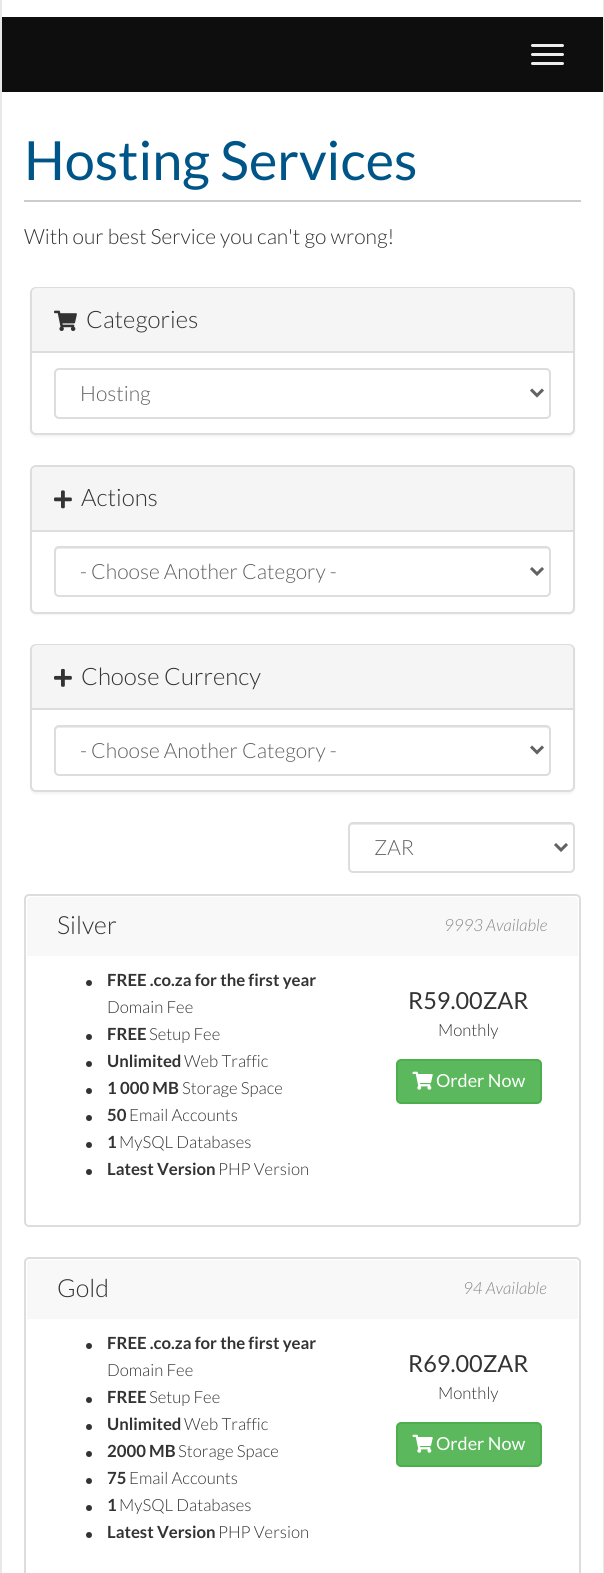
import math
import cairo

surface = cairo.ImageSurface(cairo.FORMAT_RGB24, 604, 1573)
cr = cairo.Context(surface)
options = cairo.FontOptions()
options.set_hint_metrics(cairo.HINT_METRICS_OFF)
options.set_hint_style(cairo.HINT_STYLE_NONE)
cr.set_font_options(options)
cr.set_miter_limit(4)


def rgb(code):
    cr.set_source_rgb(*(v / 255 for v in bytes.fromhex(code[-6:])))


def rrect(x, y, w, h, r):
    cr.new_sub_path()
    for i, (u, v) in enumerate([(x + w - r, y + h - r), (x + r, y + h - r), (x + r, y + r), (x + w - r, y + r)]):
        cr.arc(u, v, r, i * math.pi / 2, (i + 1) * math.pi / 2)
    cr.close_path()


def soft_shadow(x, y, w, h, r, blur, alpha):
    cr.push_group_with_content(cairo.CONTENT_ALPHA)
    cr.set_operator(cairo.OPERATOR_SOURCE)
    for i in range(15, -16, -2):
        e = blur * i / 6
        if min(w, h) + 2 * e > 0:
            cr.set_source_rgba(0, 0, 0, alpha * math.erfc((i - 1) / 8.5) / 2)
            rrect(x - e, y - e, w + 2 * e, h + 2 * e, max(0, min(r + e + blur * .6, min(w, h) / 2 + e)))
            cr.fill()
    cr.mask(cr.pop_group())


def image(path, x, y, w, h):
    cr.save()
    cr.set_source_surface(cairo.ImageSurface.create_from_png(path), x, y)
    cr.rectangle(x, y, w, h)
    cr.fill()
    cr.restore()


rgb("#ffffff")
cr.paint()
cr.rectangle(1, -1, 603, 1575)
rgb("#e8e8e8")
cr.stroke()
rgb("#0e0e0e")
cr.rectangle(2, 17, 601, 75)
cr.fill()
rgb("#eeeeee")
rrect(531, 44, 33, 3, 1.5)
cr.fill()
rrect(531, 53, 33, 3, 1.5)
cr.fill()
rrect(531, 62, 33, 3, 1.5)
cr.fill()
rgb("#cccccc")
cr.rectangle(24, 200, 557, 2)
cr.fill()
rgb("#000000")
soft_shadow(30, 288, 545, 149, 6, 1, 0.05)
rgb("#ffffff")
rrect(31, 288, 543, 146, 5)
cr.fill_preserve()
rgb("#dddddd")
cr.stroke()
rgb("#f5f5f5")
cr.new_path()
cr.move_to(37, 288)
cr.line_to(568, 288)
cr.curve_to(571, 288, 573, 290, 573, 293)
cr.line_to(573, 353)
cr.line_to(32, 353)
cr.line_to(32, 293)
cr.curve_to(32, 290, 34, 288, 37, 288)
cr.close_path()
cr.fill()
rgb("#dddddd")
cr.rectangle(32, 351, 541, 2)
cr.fill()
image("img/1.png", 54, 310, 23, 21)
rrect(55, 369, 495, 49, 4)
cr.stroke()
cr.new_path()
cr.move_to(531, 389.5)
cr.line_to(537, 395.5)
cr.line_to(543, 389.5)
rgb("#626262")
cr.set_line_width(3)
cr.stroke()
rgb("#000000")
soft_shadow(30, 467, 545, 148, 6, 1, 0.05)
rgb("#ffffff")
rrect(31, 466, 543, 147, 5)
cr.fill_preserve()
rgb("#dddddd")
cr.set_line_width(2)
cr.stroke()
rgb("#f5f5f5")
cr.new_path()
cr.move_to(37, 467)
cr.line_to(568, 467)
cr.curve_to(571, 467, 573, 469, 573, 472)
cr.line_to(573, 531)
cr.line_to(32, 531)
cr.line_to(32, 472)
cr.curve_to(32, 469, 34, 467, 37, 467)
cr.close_path()
cr.fill()
rgb("#dddddd")
cr.rectangle(32, 530, 541, 2)
cr.fill()
image("img/2.png", 54, 490, 18, 19)
rgb("#ececec")
cr.new_path()
cr.move_to(58, 549)
cr.line_to(546, 549)
cr.curve_to(548, 549, 549, 550, 549, 552)
cr.line_to(549, 551)
cr.curve_to(549, 549, 548, 548, 546, 548)
cr.line_to(59, 548)
cr.curve_to(57, 548, 56, 549, 56, 551)
cr.line_to(56, 552)
cr.curve_to(56, 550, 57, 549, 58, 549)
cr.close_path()
cr.fill()
rrect(55, 547, 495, 49, 4)
rgb("#dddddd")
cr.stroke()
cr.new_path()
cr.move_to(531, 568)
cr.line_to(537, 574)
cr.line_to(543, 568)
rgb("#626262")
cr.set_line_width(3)
cr.stroke()
rgb("#000000")
soft_shadow(30, 645, 545, 149, 6, 1, 0.05)
rgb("#ffffff")
rrect(31, 645, 543, 146, 5)
cr.fill_preserve()
rgb("#dddddd")
cr.set_line_width(2)
cr.stroke()
rgb("#f5f5f5")
cr.new_path()
cr.move_to(37, 645)
cr.line_to(568, 645)
cr.curve_to(571, 645, 573, 647, 573, 650)
cr.line_to(573, 710)
cr.line_to(32, 710)
cr.line_to(32, 650)
cr.curve_to(32, 647, 34, 645, 37, 645)
cr.close_path()
cr.fill()
rgb("#dddddd")
cr.rectangle(32, 708, 541, 2)
cr.fill()
image("img/3.png", 54, 668, 18, 19)
rgb("#ececec")
cr.new_path()
cr.move_to(58, 728)
cr.line_to(546, 728)
cr.curve_to(548, 728, 549, 729, 549, 730)
cr.line_to(549, 729)
cr.curve_to(549, 727, 548, 726, 546, 726)
cr.line_to(59, 726)
cr.curve_to(57, 726, 56, 727, 56, 729)
cr.line_to(56, 730)
cr.curve_to(56, 729, 57, 728, 58, 728)
cr.close_path()
cr.fill()
rrect(55, 726, 495, 49, 4)
rgb("#dddddd")
cr.stroke()
cr.new_path()
cr.move_to(531, 746.5)
cr.line_to(537, 752.5)
cr.line_to(543, 746.5)
rgb("#626262")
cr.set_line_width(3)
cr.stroke()
rgb("#ececec")
cr.new_path()
cr.move_to(352, 825)
cr.line_to(570, 825)
cr.curve_to(572, 825, 573, 826, 573, 828)
cr.line_to(573, 827)
cr.curve_to(573, 825, 572, 824, 570, 824)
cr.line_to(353, 824)
cr.curve_to(351, 824, 350, 825, 350, 827)
cr.line_to(350, 828)
cr.curve_to(350, 826, 351, 825, 352, 825)
cr.close_path()
cr.fill()
rrect(349, 823, 225, 49, 4)
rgb("#dddddd")
cr.set_line_width(2)
cr.stroke()
cr.new_path()
cr.move_to(555, 844)
cr.line_to(561, 850)
cr.line_to(567, 844)
rgb("#626262")
cr.set_line_width(3)
cr.stroke()
rrect(25, 895, 555, 331, 4)
rgb("#dddddd")
cr.set_line_width(2)
cr.stroke()
rgb("#f8f8f8")
cr.new_path()
cr.move_to(32, 897)
cr.line_to(573, 897)
cr.curve_to(576, 897, 578, 899, 578, 902)
cr.line_to(578, 956)
cr.line_to(27, 956)
cr.line_to(27, 902)
cr.curve_to(27, 899, 29, 897, 32, 897)
cr.close_path()
cr.fill()
rgb("#333333")
cr.arc(89, 983, 3, 0, 2 * math.pi)
cr.fill()
cr.arc(89, 1037, 3, 0, 2 * math.pi)
cr.fill()
cr.arc(89, 1064, 3, 0, 2 * math.pi)
cr.fill()
cr.arc(89, 1091, 3, 0, 2 * math.pi)
cr.fill()
cr.arc(89, 1118, 3, 0, 2 * math.pi)
cr.fill()
cr.arc(89, 1145, 3, 0, 2 * math.pi)
cr.fill()
cr.arc(89, 1172, 3, 0, 2 * math.pi)
cr.fill()
rgb("#5cb85c")
rrect(397, 1060, 144, 43, 4)
cr.fill_preserve()
rgb("#4cae4c")
cr.stroke()
image("img/4.png", 412, 1071, 21, 19)
rrect(25, 1258, 555, 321, 4)
rgb("#dddddd")
cr.stroke()
rgb("#f8f8f8")
cr.new_path()
cr.move_to(32, 1260)
cr.line_to(573, 1260)
cr.curve_to(576, 1260, 578, 1262, 578, 1265)
cr.line_to(578, 1319)
cr.line_to(27, 1319)
cr.line_to(27, 1265)
cr.curve_to(27, 1262, 29, 1260, 32, 1260)
cr.close_path()
cr.fill()
rgb("#333333")
cr.arc(89, 1346, 3, 0, 2 * math.pi)
cr.fill()
cr.arc(89, 1400, 3, 0, 2 * math.pi)
cr.fill()
cr.arc(89, 1427, 3, 0, 2 * math.pi)
cr.fill()
cr.arc(89, 1454, 3, 0, 2 * math.pi)
cr.fill()
cr.arc(89, 1481, 3, 0, 2 * math.pi)
cr.fill()
cr.arc(89, 1508, 3, 0, 2 * math.pi)
cr.fill()
cr.arc(89, 1535, 3, 0, 2 * math.pi)
cr.fill()
rgb("#5cb85c")
rrect(397, 1423, 144, 43, 4)
cr.fill_preserve()
rgb("#4cae4c")
cr.stroke()
image("img/4.png", 412, 1434, 21, 19)
cr.select_font_face("Lato")
cr.set_font_size(54)
rgb("#005588")
cr.move_to(24, 180)
cr.show_text("Hosting Services")
cr.select_font_face("Lato Light")
cr.set_font_size(21)
rgb("#333333")
cr.move_to(24, 244)
cr.show_text("With our best Service you can't go wrong!")
cr.set_font_size(24)
cr.move_to(86, 328)
cr.show_text("Categories")
cr.set_font_size(21)
rgb("#626262")
cr.move_to(80, 401)
cr.show_text("Hosting")
cr.set_font_size(24)
rgb("#333333")
cr.move_to(81, 506)
cr.show_text("Actions")
cr.set_font_size(21)
rgb("#626262")
cr.move_to(80, 579)
cr.show_text("- Choose Another Category -")
cr.set_font_size(24)
rgb("#333333")
cr.move_to(81, 685)
cr.show_text("Choose Currency")
cr.set_font_size(21)
rgb("#626262")
cr.move_to(80, 758)
cr.show_text("- Choose Another Category -")
cr.move_to(374, 855)
cr.show_text("ZAR")
cr.set_font_size(25)
rgb("#333333")
cr.move_to(57, 934)
cr.show_text("Silver")
cr.select_font_face("Lato Light", cairo.FONT_SLANT_ITALIC)
cr.set_font_size(16.75)
rgb("#888888")
cr.move_to(444, 931)
cr.show_text("9993 Available")
cr.select_font_face("Lato", cairo.FONT_SLANT_NORMAL, cairo.FONT_WEIGHT_BOLD)
rgb("#333333")
cr.move_to(107, 986)
cr.show_text("FREE .co.za for the first year")
cr.select_font_face("Lato Light")
cr.move_to(107, 1013)
cr.show_text("Domain Fee")
cr.select_font_face("Lato", cairo.FONT_SLANT_NORMAL, cairo.FONT_WEIGHT_BOLD)
cr.move_to(107, 1040)
cr.show_text("FREE")
cr.select_font_face("Lato Light")
cr.move_to(149, 1040)
cr.show_text("Setup Fee")
cr.select_font_face("Lato", cairo.FONT_SLANT_NORMAL, cairo.FONT_WEIGHT_BOLD)
cr.move_to(107, 1067)
cr.show_text("Unlimited")
cr.select_font_face("Lato Light")
cr.move_to(184, 1067)
cr.show_text("Web Traffic")
cr.select_font_face("Lato", cairo.FONT_SLANT_NORMAL, cairo.FONT_WEIGHT_BOLD)
cr.move_to(107, 1094)
cr.show_text("1 000 MB")
cr.select_font_face("Lato Light")
cr.move_to(182, 1094)
cr.show_text("Storage Space")
cr.select_font_face("Lato", cairo.FONT_SLANT_NORMAL, cairo.FONT_WEIGHT_BOLD)
cr.move_to(107, 1121)
cr.show_text("50")
cr.select_font_face("Lato Light")
cr.move_to(129, 1121)
cr.show_text("Email Accounts")
cr.select_font_face("Lato", cairo.FONT_SLANT_NORMAL, cairo.FONT_WEIGHT_BOLD)
cr.move_to(107, 1148)
cr.show_text("1")
cr.select_font_face("Lato Light")
cr.move_to(119, 1148)
cr.show_text("MySQL Databases")
cr.select_font_face("Lato", cairo.FONT_SLANT_NORMAL, cairo.FONT_WEIGHT_BOLD)
cr.move_to(107, 1175)
cr.show_text("Latest Version")
cr.select_font_face("Lato Light")
cr.move_to(218, 1175)
cr.show_text("PHP Version")
cr.select_font_face("Lato")
cr.set_font_size(23.5)
cr.move_to(408, 1009)
cr.show_text("R59.00ZAR")
cr.select_font_face("Lato Light")
cr.set_font_size(16.75)
cr.move_to(438, 1036)
cr.show_text("Monthly")
cr.select_font_face("Lato")
cr.set_font_size(18)
rgb("#ffffff")
cr.move_to(436, 1087)
cr.show_text("Order Now")
cr.select_font_face("Lato Light")
cr.set_font_size(25)
rgb("#333333")
cr.move_to(57, 1297)
cr.show_text("Gold")
cr.select_font_face("Lato Light", cairo.FONT_SLANT_ITALIC)
cr.set_font_size(16.75)
rgb("#888888")
cr.move_to(463, 1294)
cr.show_text("94 Available")
cr.select_font_face("Lato", cairo.FONT_SLANT_NORMAL, cairo.FONT_WEIGHT_BOLD)
rgb("#333333")
cr.move_to(107, 1349)
cr.show_text("FREE .co.za for the first year")
cr.select_font_face("Lato Light")
cr.move_to(107, 1376)
cr.show_text("Domain Fee")
cr.select_font_face("Lato", cairo.FONT_SLANT_NORMAL, cairo.FONT_WEIGHT_BOLD)
cr.move_to(107, 1403)
cr.show_text("FREE")
cr.select_font_face("Lato Light")
cr.move_to(149, 1403)
cr.show_text("Setup Fee")
cr.select_font_face("Lato", cairo.FONT_SLANT_NORMAL, cairo.FONT_WEIGHT_BOLD)
cr.move_to(107, 1430)
cr.show_text("Unlimited")
cr.select_font_face("Lato Light")
cr.move_to(184, 1430)
cr.show_text("Web Traffic")
cr.select_font_face("Lato", cairo.FONT_SLANT_NORMAL, cairo.FONT_WEIGHT_BOLD)
cr.move_to(107, 1457)
cr.show_text("2000 MB")
cr.select_font_face("Lato Light")
cr.move_to(178, 1457)
cr.show_text("Storage Space")
cr.select_font_face("Lato", cairo.FONT_SLANT_NORMAL, cairo.FONT_WEIGHT_BOLD)
cr.move_to(107, 1484)
cr.show_text("75")
cr.select_font_face("Lato Light")
cr.move_to(129, 1484)
cr.show_text("Email Accounts")
cr.select_font_face("Lato", cairo.FONT_SLANT_NORMAL, cairo.FONT_WEIGHT_BOLD)
cr.move_to(107, 1511)
cr.show_text("1")
cr.select_font_face("Lato Light")
cr.move_to(119, 1511)
cr.show_text("MySQL Databases")
cr.select_font_face("Lato", cairo.FONT_SLANT_NORMAL, cairo.FONT_WEIGHT_BOLD)
cr.move_to(107, 1538)
cr.show_text("Latest Version")
cr.select_font_face("Lato Light")
cr.move_to(218, 1538)
cr.show_text("PHP Version")
cr.select_font_face("Lato")
cr.set_font_size(23.5)
cr.move_to(408, 1372)
cr.show_text("R69.00ZAR")
cr.select_font_face("Lato Light")
cr.set_font_size(16.75)
cr.move_to(438, 1399)
cr.show_text("Monthly")
cr.select_font_face("Lato")
cr.set_font_size(18)
rgb("#ffffff")
cr.move_to(436, 1450)
cr.show_text("Order Now")
surface.write_to_png("page.png")
